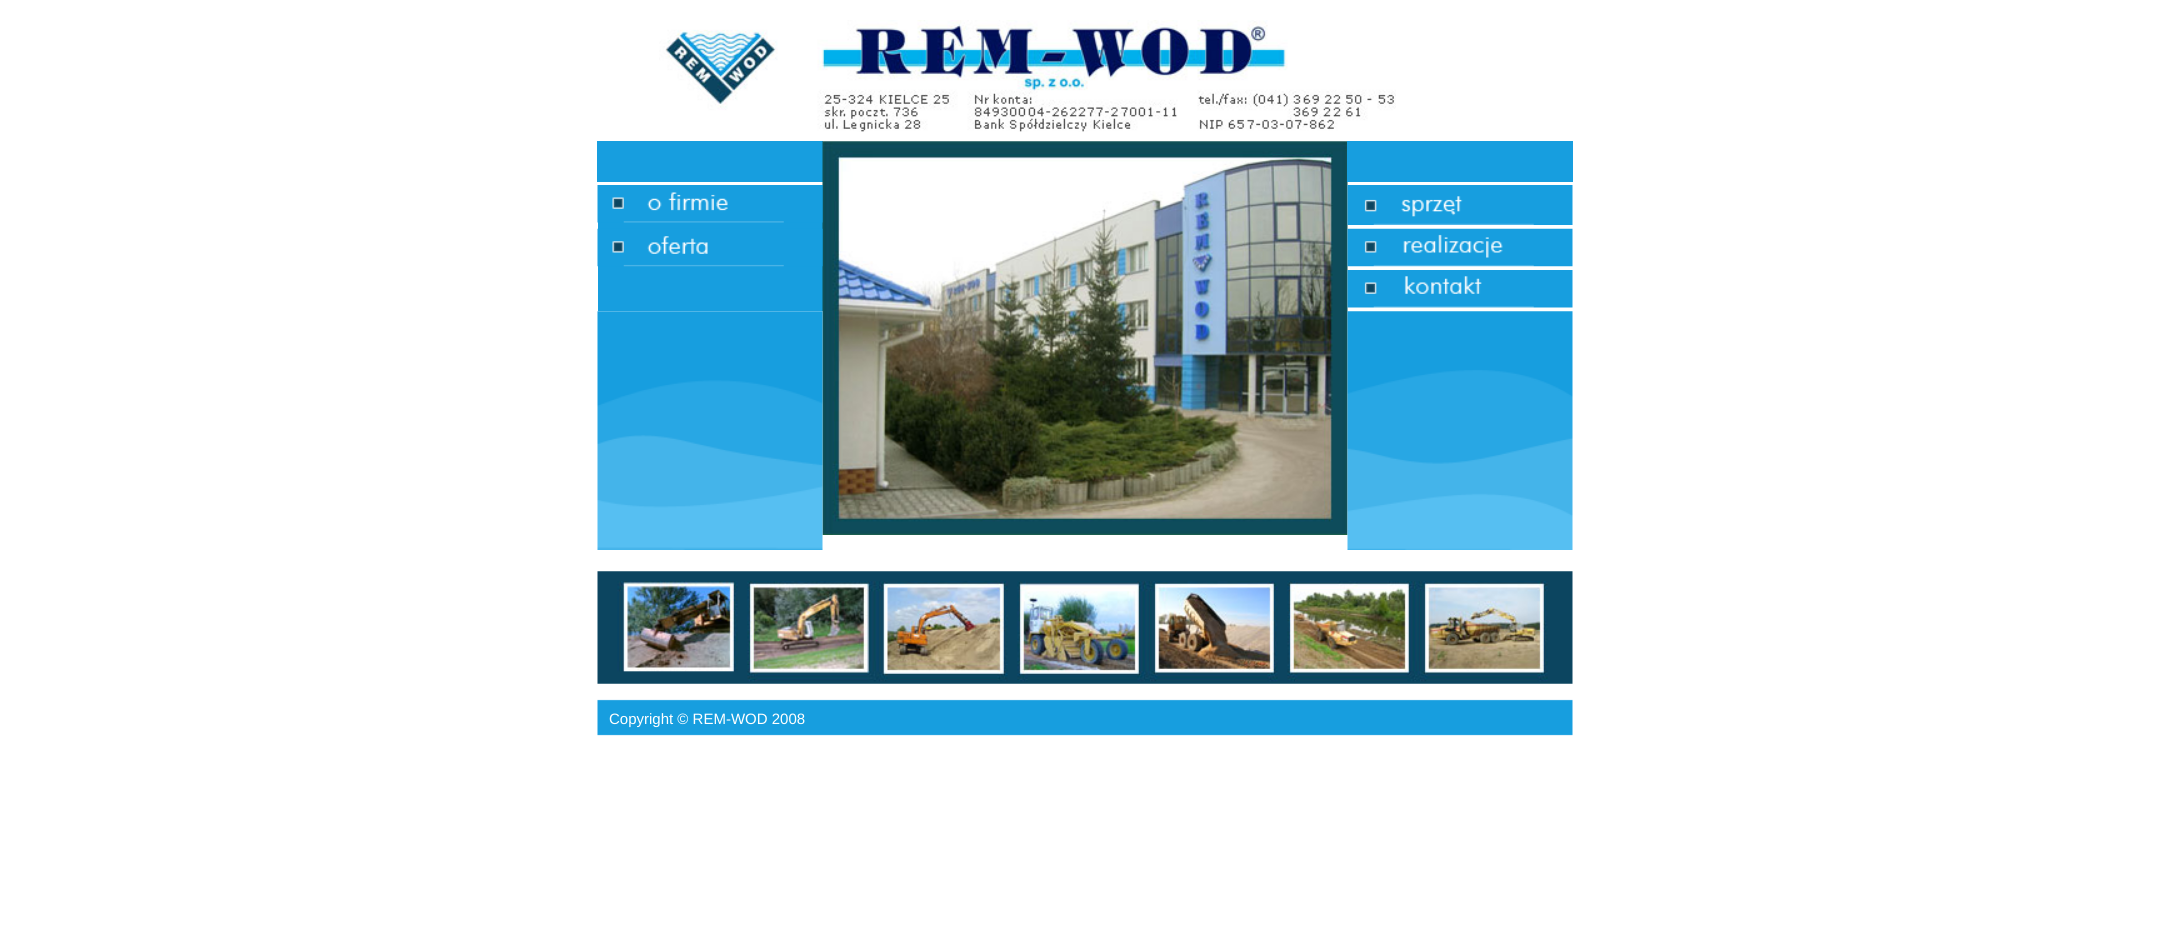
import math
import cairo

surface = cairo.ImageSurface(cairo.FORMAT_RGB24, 2168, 934)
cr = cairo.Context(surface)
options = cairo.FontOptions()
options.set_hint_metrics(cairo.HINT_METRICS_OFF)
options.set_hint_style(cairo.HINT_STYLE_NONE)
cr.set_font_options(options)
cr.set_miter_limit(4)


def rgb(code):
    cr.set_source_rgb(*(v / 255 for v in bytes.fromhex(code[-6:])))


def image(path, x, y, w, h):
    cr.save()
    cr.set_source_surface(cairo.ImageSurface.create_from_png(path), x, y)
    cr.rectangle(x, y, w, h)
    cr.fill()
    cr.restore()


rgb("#ffffff")
cr.paint()
image("img/1.png", 659, 20, 737, 112)
rgb("#179edf")
cr.rectangle(597, 141, 226, 41)
cr.fill()
cr.rectangle(598, 185, 225, 126)
cr.fill()
image("img/2.png", 822, 141, 526, 394)
cr.rectangle(1347, 141, 226, 41)
cr.fill()
image("img/3.png", 597, 185, 226, 38)
image("img/4.png", 1347, 185, 226, 40)
image("img/5.png", 597, 228, 226, 39)
image("img/6.png", 1347, 228, 226, 39)
image("img/7.png", 1347, 270, 226, 38)
image("img/8.png", 597, 311, 226, 239)
image("img/9.png", 1347, 311, 226, 239)
image("img/10.png", 597, 571, 976, 113)
image("img/11.png", 597, 699, 976, 37)
cr.select_font_face("Liberation Sans")
cr.set_font_size(15)
rgb("#ffffff")
cr.move_to(609, 724)
cr.show_text("Copyright © REM-WOD 2008")
surface.write_to_png("page.png")
